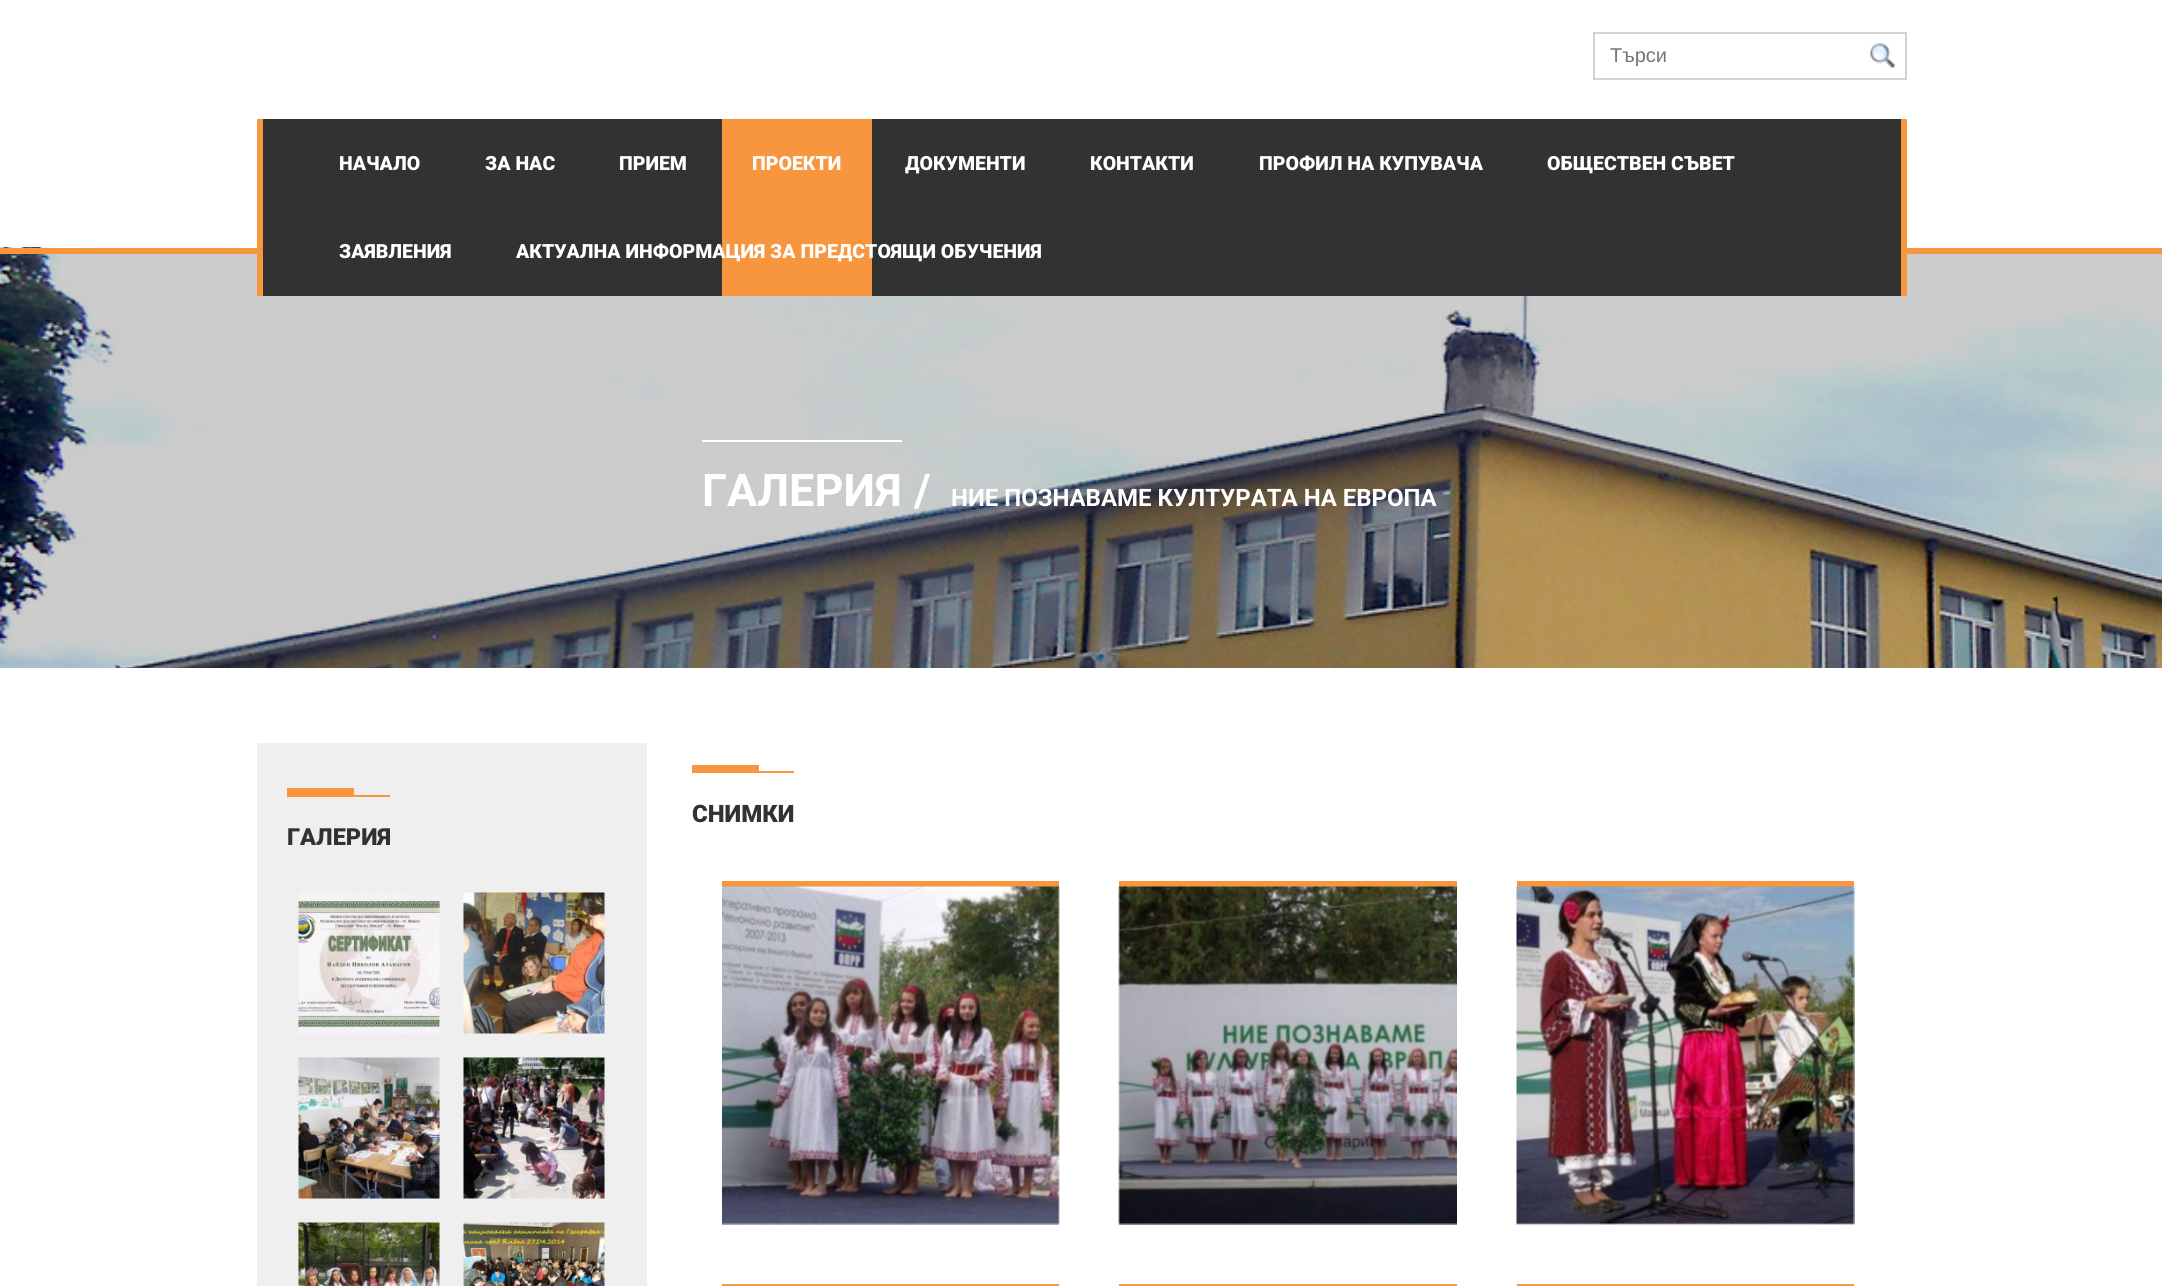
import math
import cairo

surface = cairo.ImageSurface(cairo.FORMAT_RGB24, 2162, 1286)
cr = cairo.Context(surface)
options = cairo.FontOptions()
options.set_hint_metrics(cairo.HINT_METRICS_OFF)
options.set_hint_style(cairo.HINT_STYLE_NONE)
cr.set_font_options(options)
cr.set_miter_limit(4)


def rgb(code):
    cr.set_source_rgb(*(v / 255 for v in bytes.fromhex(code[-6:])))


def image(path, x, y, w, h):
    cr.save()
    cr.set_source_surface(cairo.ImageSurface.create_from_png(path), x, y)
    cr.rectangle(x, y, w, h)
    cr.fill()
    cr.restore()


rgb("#ffffff")
cr.paint()
cr.rectangle(1594, 33, 312, 46)
rgb("#d2d2d2")
cr.stroke()
image("img/1.png", 1870, 43, 25, 25)
image("img/2.png", 0, 247, 2162, 421)
for x, y, w, h, color in [
    (0, 248, 2162, 6, "#f7963e"),
    (263, 119, 1638, 177, "#323232"),
    (1901, 119, 6, 177, "#f7963e"),
    (257, 119, 6, 177, "#f7963e"),
    (722, 119, 150, 177, "#f7963e"),
    (702, 440, 200, 2, "#ffffff"),
    (692, 765, 67, 6, "#f7963e"),
    (692, 771, 102, 2, "#f7963e"),
    (722, 881, 337, 6, "#f7963e"),
]:
    rgb(color)
    cr.rectangle(x, y, w, h)
    cr.fill()
image("img/3.png", 722, 886, 338, 339)
cr.rectangle(1119, 881, 338, 6)
cr.fill()
image("img/4.png", 1118, 886, 339, 339)
cr.rectangle(1517, 881, 337, 6)
cr.fill()
image("img/5.png", 1516, 886, 339, 339)
for x, y, w, h, color in [
    (722, 1284, 337, 2, "#f7963e"),
    (1119, 1284, 338, 2, "#f7963e"),
    (1517, 1284, 337, 2, "#f7963e"),
    (257, 743, 390, 543, "#efefef"),
    (287, 788, 67, 7, "#f7963e"),
    (287, 795, 103, 2, "#f7963e"),
]:
    rgb(color)
    cr.rectangle(x, y, w, h)
    cr.fill()
image("img/6.png", 298, 892, 142, 142)
image("img/7.png", 463, 892, 142, 142)
image("img/8.png", 298, 1057, 142, 142)
image("img/9.png", 463, 1057, 142, 142)
image("img/10.png", 298, 1222, 142, 64)
image("img/11.png", 463, 1222, 142, 64)
cr.select_font_face("Liberation Sans")
cr.set_font_size(20)
rgb("#757575")
cr.move_to(1610, 62)
cr.show_text("Търси")
cr.select_font_face("Roboto Black")
cr.set_font_size(19.5)
rgb("#ffffff")
for x, y, s in [
    (339, 170, "НАЧАЛО"),
    (485, 170, "ЗА НАС"),
    (619, 170, "ПРИЕМ"),
    (752, 170, "ПРОЕКТИ"),
    (905, 170, "ДОКУМЕНТИ"),
    (1090, 170, "КОНТАКТИ"),
    (1259, 170, "ПРОФИЛ НА КУПУВАЧА"),
    (1547, 170, "ОБЩЕСТВЕН СЪВЕТ"),
    (339, 258, "ЗАЯВЛЕНИЯ"),
    (516, 258, "АКТУАЛНА ИНФОРМАЦИЯ ЗА ПРЕДСТОЯЩИ ОБУЧЕНИЯ"),
]:
    cr.move_to(x, y)
    cr.show_text(s)
cr.select_font_face("Roboto", cairo.FONT_SLANT_NORMAL, cairo.FONT_WEIGHT_BOLD)
cr.set_font_size(45)
cr.move_to(702, 506)
cr.show_text("ГАЛЕРИЯ")
cr.move_to(914, 506)
cr.show_text("/")
cr.set_font_size(24)
cr.move_to(951, 506)
cr.show_text("НИЕ ПОЗНАВАМЕ КУЛТУРАТА НА ЕВРОПА")
cr.select_font_face("Roboto Black")
rgb("#323232")
cr.move_to(692, 822)
cr.show_text("СНИМКИ")
cr.set_font_size(23.5)
cr.move_to(287, 845)
cr.show_text("ГАЛЕРИЯ")
surface.write_to_png("page.png")
